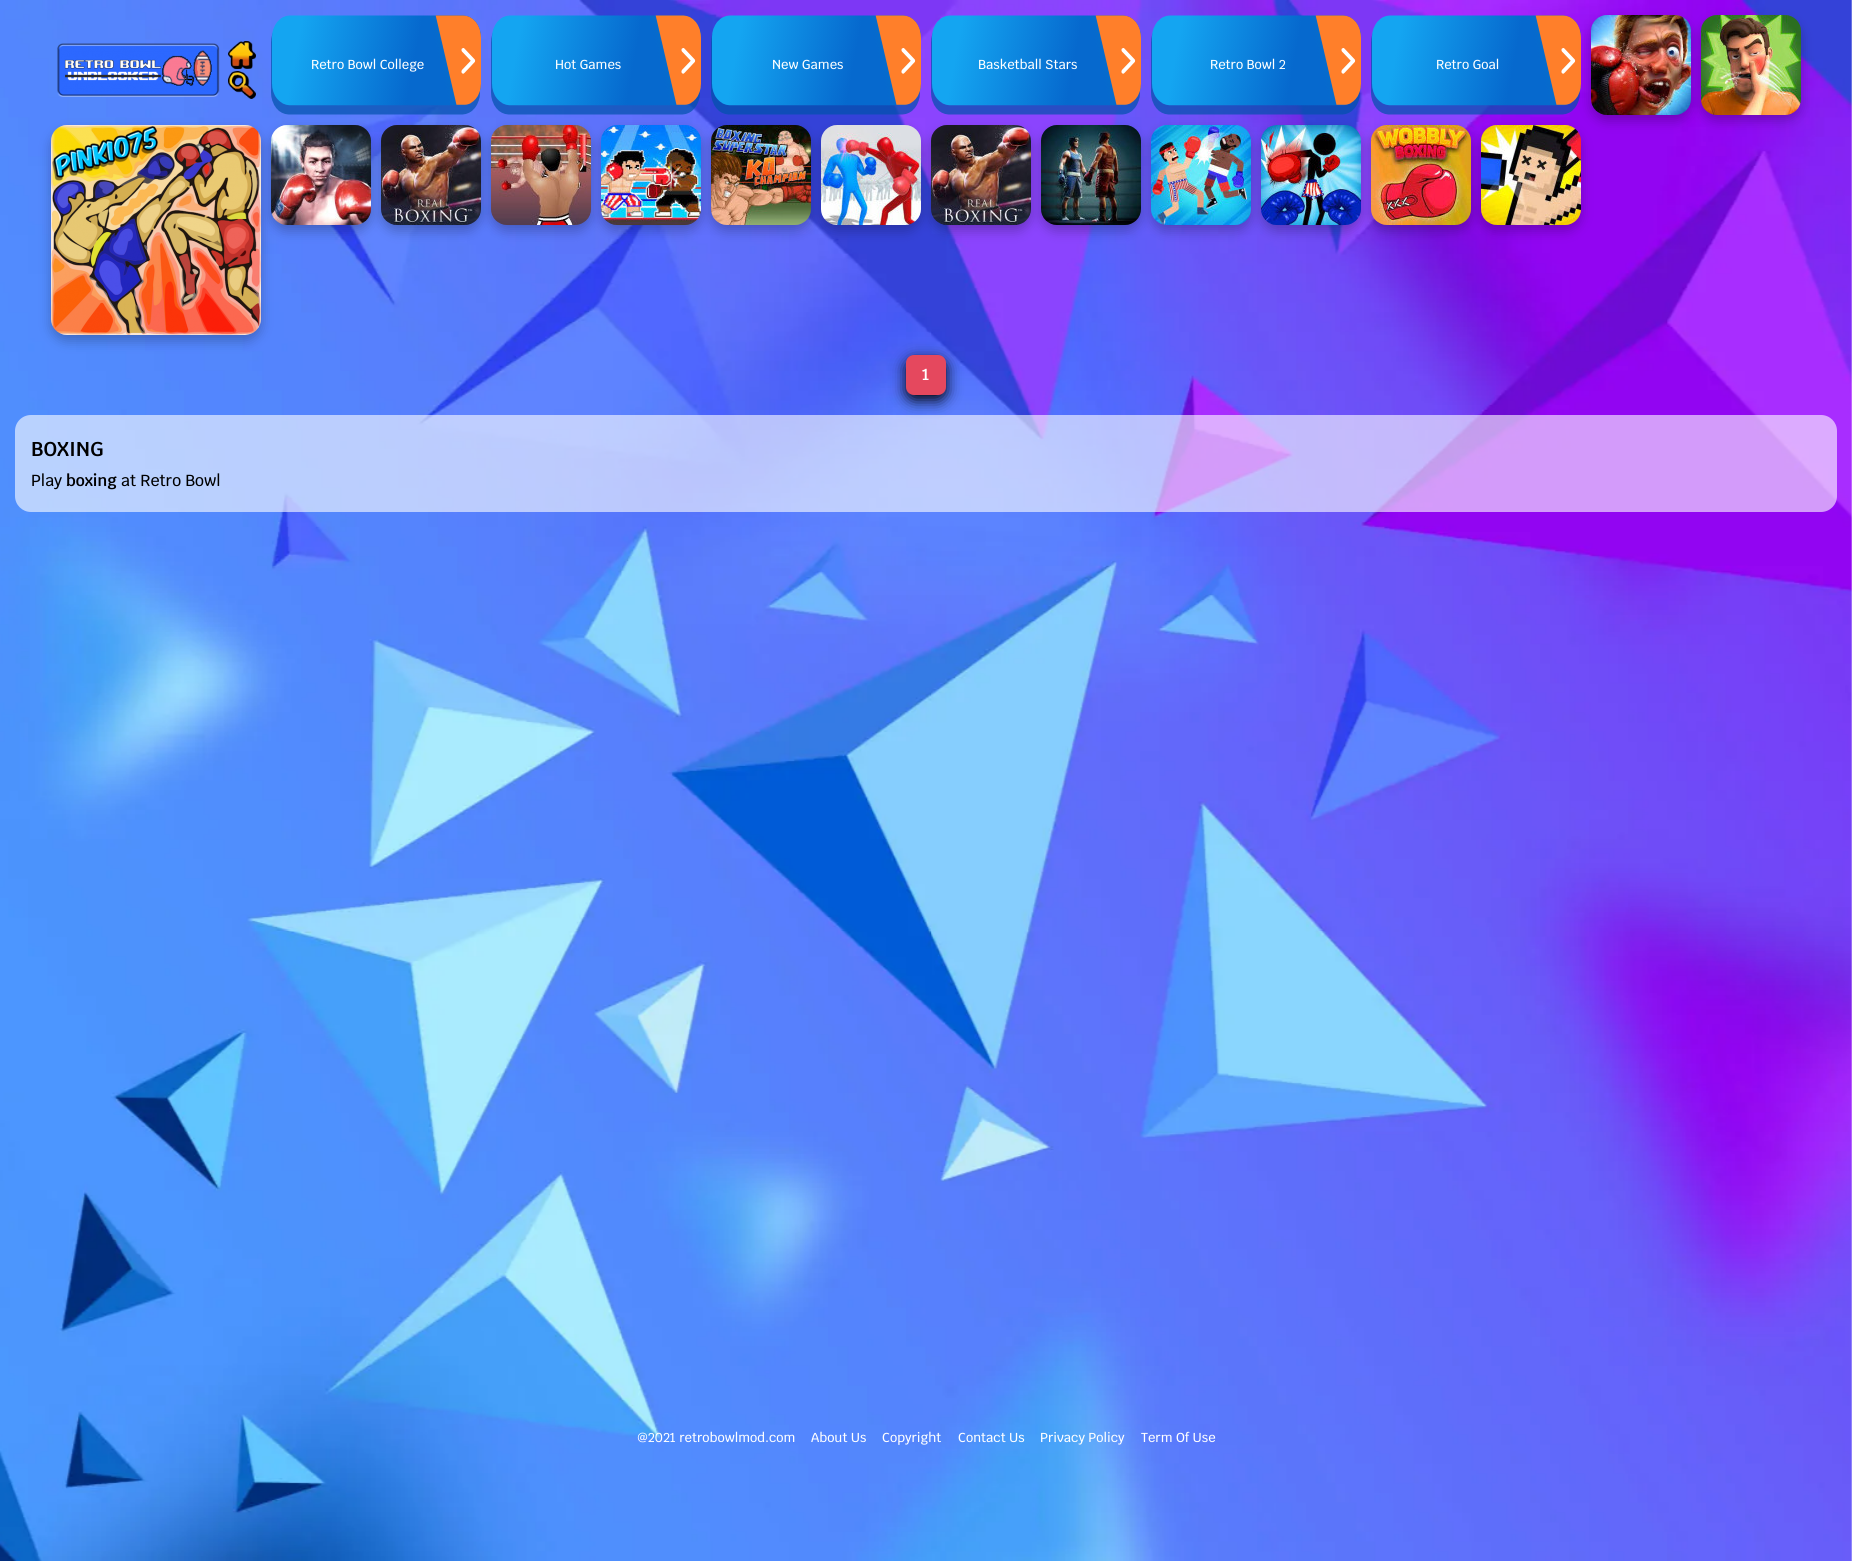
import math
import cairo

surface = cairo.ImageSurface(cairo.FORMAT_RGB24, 1852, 1561)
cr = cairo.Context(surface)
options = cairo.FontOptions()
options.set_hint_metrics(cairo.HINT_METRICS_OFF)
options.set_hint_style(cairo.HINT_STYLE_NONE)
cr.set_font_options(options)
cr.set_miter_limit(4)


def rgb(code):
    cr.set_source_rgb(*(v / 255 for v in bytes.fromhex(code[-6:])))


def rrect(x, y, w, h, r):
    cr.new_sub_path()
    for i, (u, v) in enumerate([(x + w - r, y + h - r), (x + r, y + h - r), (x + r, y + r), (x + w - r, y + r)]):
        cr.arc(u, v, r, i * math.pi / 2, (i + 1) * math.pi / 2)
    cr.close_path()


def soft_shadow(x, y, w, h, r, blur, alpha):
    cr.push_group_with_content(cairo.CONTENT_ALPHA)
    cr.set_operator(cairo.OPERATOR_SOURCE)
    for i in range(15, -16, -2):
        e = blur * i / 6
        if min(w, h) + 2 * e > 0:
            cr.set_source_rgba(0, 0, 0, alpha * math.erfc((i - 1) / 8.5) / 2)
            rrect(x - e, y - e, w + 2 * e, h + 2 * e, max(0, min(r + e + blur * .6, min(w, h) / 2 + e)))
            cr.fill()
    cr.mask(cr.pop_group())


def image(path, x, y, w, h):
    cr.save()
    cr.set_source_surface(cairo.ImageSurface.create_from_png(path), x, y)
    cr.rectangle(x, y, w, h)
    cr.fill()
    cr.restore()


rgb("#ffffff")
cr.paint()
image("img/1.png", 0, 0, 1852, 1561)
image("img/2.png", 57, 43, 163, 54)
image("img/3.png", 228, 41, 28, 28)
image("img/4.png", 228, 71, 28, 28)
image("img/5.png", 271, 15, 210, 100)
image("img/6.png", 491, 15, 210, 100)
image("img/7.png", 711, 15, 210, 100)
image("img/8.png", 931, 15, 210, 100)
image("img/9.png", 1151, 15, 210, 100)
image("img/10.png", 1371, 15, 210, 100)
rgb("#000000")
soft_shadow(1591, 21, 100, 100, 16, 6, 0.24)
image("img/11.png", 1591, 15, 100, 100)
soft_shadow(1701, 21, 100, 100, 16, 6, 0.24)
image("img/12.png", 1701, 15, 100, 100)
soft_shadow(51, 131, 210, 210, 16, 6, 0.24)
image("img/13.png", 51, 125, 210, 210)
soft_shadow(271, 131, 100, 100, 16, 6, 0.24)
image("img/14.png", 271, 125, 100, 100)
soft_shadow(381, 131, 100, 100, 16, 6, 0.24)
image("img/15.png", 381, 125, 100, 100)
soft_shadow(491, 131, 100, 100, 16, 6, 0.24)
image("img/16.png", 491, 125, 100, 100)
soft_shadow(601, 131, 100, 100, 16, 6, 0.24)
image("img/17.png", 601, 125, 100, 100)
soft_shadow(711, 131, 100, 100, 16, 6, 0.24)
image("img/18.png", 711, 125, 100, 100)
soft_shadow(821, 131, 100, 100, 16, 6, 0.24)
image("img/19.png", 821, 125, 100, 100)
soft_shadow(931, 131, 100, 100, 16, 6, 0.24)
image("img/20.png", 931, 125, 100, 100)
soft_shadow(1041, 131, 100, 100, 16, 6, 0.24)
image("img/21.png", 1041, 125, 100, 100)
soft_shadow(1151, 131, 100, 100, 16, 6, 0.24)
image("img/22.png", 1151, 125, 100, 100)
soft_shadow(1261, 131, 100, 100, 16, 6, 0.24)
image("img/23.png", 1261, 125, 100, 100)
soft_shadow(1371, 131, 100, 100, 16, 6, 0.24)
image("img/24.png", 1371, 125, 100, 100)
soft_shadow(1481, 131, 100, 100, 16, 6, 0.24)
image("img/25.png", 1481, 125, 100, 100)
cr.set_source_rgba(1, 1, 1, 0.6)
rrect(15, 415, 1822, 97, 16)
cr.fill()
rgb("#000000")
soft_shadow(906, 360, 40, 40, 8, 7.5, 1)
rgb("#e5485e")
rrect(906, 355, 40, 40, 8)
cr.fill()
cr.select_font_face("Krub Medium")
cr.set_font_size(13)
rgb("#ffffff")
for x, y, s in [
    (311, 69, "Retro Bowl College"),
    (555, 69, "Hot Games"),
    (772, 69, "New Games"),
    (978, 69, "Basketball Stars"),
    (1210, 69, "Retro Bowl 2"),
    (1436, 69, "Retro Goal"),
]:
    cr.move_to(x, y)
    cr.show_text(s)
cr.select_font_face("Krub SemiBold")
cr.set_font_size(16)
cr.move_to(922, 380)
cr.show_text("1")
cr.set_font_size(20)
rgb("#000000")
cr.move_to(31, 456)
cr.show_text("BOXING")
cr.select_font_face("Krub Medium")
cr.set_font_size(16)
cr.move_to(31, 486)
cr.show_text("Play")
cr.select_font_face("Krub SemiBold")
cr.move_to(66, 486)
cr.show_text("boxing")
cr.select_font_face("Krub Medium")
cr.move_to(121, 486)
cr.show_text("at Retro Bowl")
cr.set_font_size(13)
rgb("#ffffff")
for x, y, s in [
    (637, 1442, "@2021 retrobowlmod.com"),
    (811, 1442, "About Us"),
    (882, 1442, "Copyright"),
    (958, 1442, "Contact Us"),
    (1040, 1442, "Privacy Policy"),
    (1141, 1442, "Term Of Use"),
]:
    cr.move_to(x, y)
    cr.show_text(s)
surface.write_to_png("page.png")
